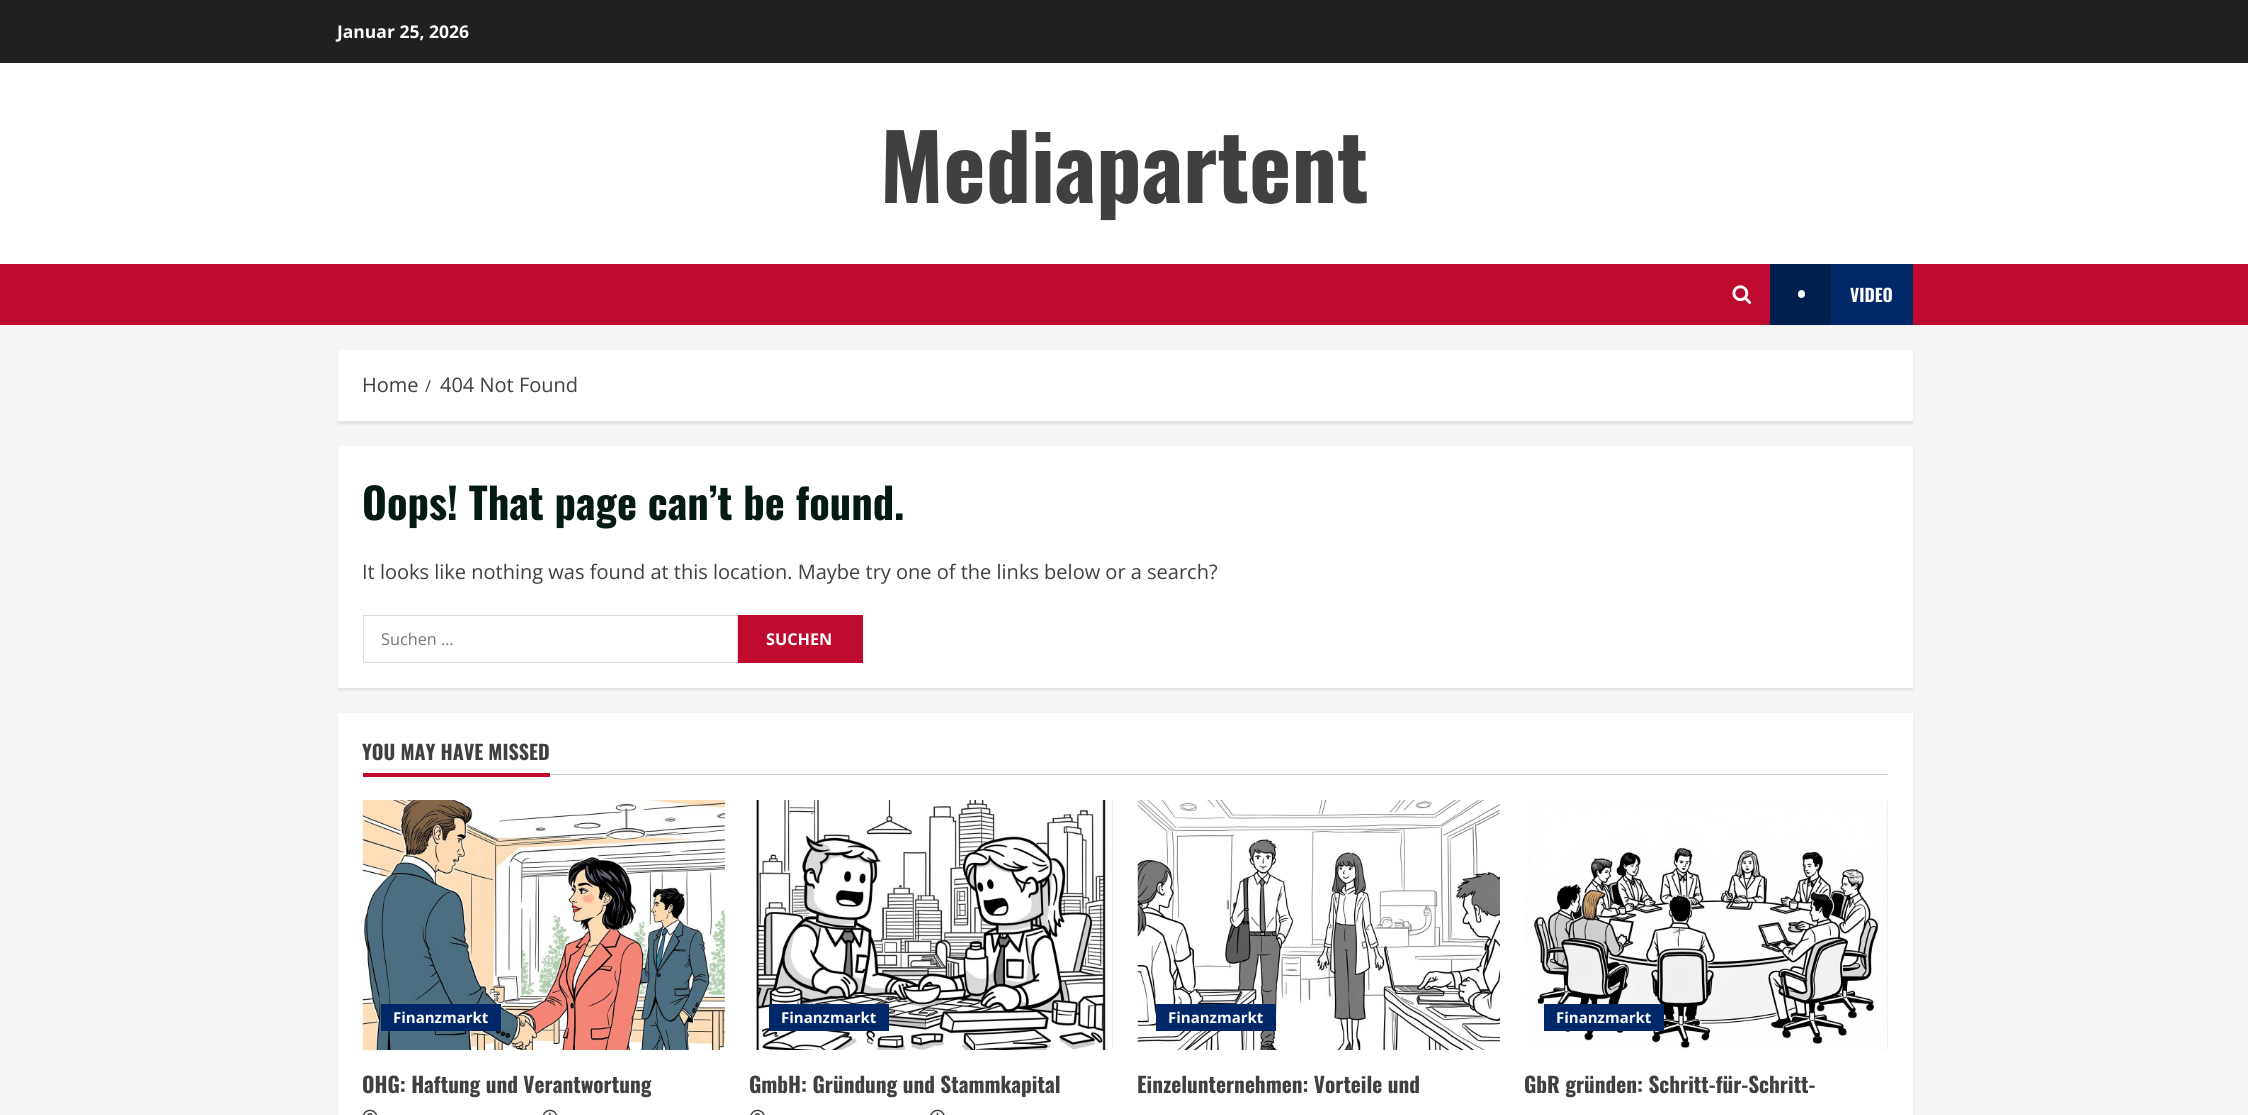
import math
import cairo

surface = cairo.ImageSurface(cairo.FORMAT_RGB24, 2248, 1115)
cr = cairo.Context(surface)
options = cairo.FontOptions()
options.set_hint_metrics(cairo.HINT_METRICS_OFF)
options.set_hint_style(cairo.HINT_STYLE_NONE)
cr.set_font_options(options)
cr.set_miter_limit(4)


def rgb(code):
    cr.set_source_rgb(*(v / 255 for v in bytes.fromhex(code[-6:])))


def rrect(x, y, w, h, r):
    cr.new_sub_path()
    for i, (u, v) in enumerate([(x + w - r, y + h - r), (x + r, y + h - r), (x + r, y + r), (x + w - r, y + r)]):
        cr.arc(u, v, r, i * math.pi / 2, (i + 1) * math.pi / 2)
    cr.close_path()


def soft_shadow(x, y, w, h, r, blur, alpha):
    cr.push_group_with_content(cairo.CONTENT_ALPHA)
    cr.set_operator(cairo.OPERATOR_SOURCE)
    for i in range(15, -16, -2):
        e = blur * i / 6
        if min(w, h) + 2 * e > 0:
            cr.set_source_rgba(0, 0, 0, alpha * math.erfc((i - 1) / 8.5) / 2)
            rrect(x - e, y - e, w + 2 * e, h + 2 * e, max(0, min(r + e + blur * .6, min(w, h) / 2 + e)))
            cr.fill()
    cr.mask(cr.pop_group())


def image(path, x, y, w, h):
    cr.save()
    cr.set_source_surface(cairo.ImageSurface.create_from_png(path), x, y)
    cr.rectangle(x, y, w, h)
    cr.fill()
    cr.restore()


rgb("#f5f5f5")
cr.paint()
for x, y, w, h, color in [
    (0, 0, 2248, 63, "#202020"),
    (0, 63, 2248, 201, "#ffffff"),
    (0, 264, 2248, 61, "#bf0a30"),
]:
    rgb(color)
    cr.rectangle(x, y, w, h)
    cr.fill()
image("img/1.png", 1732, 285, 20, 19)
rgb("#002868")
cr.rectangle(1831, 264, 82, 61)
cr.fill()
rgb("#001e4e")
cr.rectangle(1770, 264, 61, 61)
cr.fill()
rgb("#ffffff")
rrect(1798, 290, 7, 8, 3.5)
cr.fill()
rgb("#000000")
soft_shadow(338, 353, 1575, 71, 0, 1, 0.08)
rgb("#ffffff")
cr.rectangle(338, 350, 1575, 71)
cr.fill()
rgb("#000000")
soft_shadow(338, 449, 1575, 241, 0, 1, 0.08)
rgb("#ffffff")
cr.rectangle(338, 446, 1575, 242)
cr.fill()
cr.rectangle(363.5, 615.5, 374, 47)
rgb("#dcdcdc")
cr.set_line_width(1)
cr.stroke()
rgb("#bf0a30")
cr.rectangle(738, 615, 125, 48)
cr.fill()
rgb("#000000")
soft_shadow(338, 715, 1575, 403, 0, 1, 0.08)
for x, y, w, h, color in [
    (338, 713, 1575, 402, "#ffffff"),
    (550, 774, 1338, 1, "#cccccc"),
    (363, 773, 187, 4, "#bf0a30"),
]:
    rgb(color)
    cr.rectangle(x, y, w, h)
    cr.fill()
image("img/2.png", 362, 800, 363, 250)
rgb("#002868")
cr.rectangle(381, 1004, 120, 27)
cr.fill()
image("img/3.png", 362, 1109, 16, 6)
image("img/4.png", 542, 1109, 16, 6)
rgb("#ececec")
cr.rectangle(1112, 800, 1, 250)
cr.fill()
image("img/5.png", 750, 800, 363, 250)
rgb("#002868")
cr.rectangle(769, 1004, 120, 27)
cr.fill()
image("img/6.png", 750, 1109, 15, 6)
image("img/7.png", 930, 1109, 15, 6)
image("img/8.png", 1137, 800, 363, 250)
cr.rectangle(1156, 1004, 120, 27)
cr.fill()
rgb("#ececec")
cr.rectangle(1887, 800, 1, 250)
cr.fill()
image("img/9.png", 1525, 800, 363, 250)
rgb("#002868")
cr.rectangle(1544, 1004, 120, 27)
cr.fill()
cr.select_font_face("Open Sans", cairo.FONT_SLANT_NORMAL, cairo.FONT_WEIGHT_BOLD)
cr.set_font_size(17.5)
rgb("#ffffff")
cr.move_to(337, 38)
cr.show_text("Januar 25, 2026")
cr.select_font_face("Oswald", cairo.FONT_SLANT_NORMAL, cairo.FONT_WEIGHT_BOLD)
cr.set_font_size(90)
rgb("#404040")
cr.move_to(880, 203)
cr.show_text("Mediapartent")
cr.set_font_size(17.5)
rgb("#ffffff")
cr.move_to(1850, 302)
cr.show_text("VIDEO")
cr.select_font_face("Open Sans")
cr.set_font_size(20)
rgb("#404040")
cr.move_to(362, 392)
cr.show_text("Home")
cr.set_font_size(16.25)
cr.move_to(425, 392)
cr.show_text("/")
cr.set_font_size(20)
cr.move_to(440, 392)
cr.show_text("404 Not Found")
cr.select_font_face("Oswald", cairo.FONT_SLANT_NORMAL, cairo.FONT_WEIGHT_BOLD)
cr.set_font_size(42.5)
rgb("#031b11")
cr.move_to(362, 520)
cr.show_text("Oops! That page can’t be found.")
cr.select_font_face("Open Sans")
cr.set_font_size(20)
rgb("#404040")
cr.move_to(362, 579)
cr.show_text("It looks like nothing was found at this location. Maybe try one of the links below or a search?")
cr.set_font_size(16.25)
rgb("#757575")
cr.move_to(381, 645)
cr.show_text("Suchen …")
cr.select_font_face("Open Sans", cairo.FONT_SLANT_NORMAL, cairo.FONT_WEIGHT_BOLD)
rgb("#ffffff")
cr.move_to(766, 645)
cr.show_text("SUCHEN")
cr.select_font_face("Oswald", cairo.FONT_SLANT_NORMAL, cairo.FONT_WEIGHT_BOLD)
cr.set_font_size(20)
rgb("#404040")
cr.move_to(362, 760)
cr.show_text("YOU MAY HAVE MISSED")
cr.select_font_face("Open Sans", cairo.FONT_SLANT_NORMAL, cairo.FONT_WEIGHT_BOLD)
cr.set_font_size(15)
rgb("#ffffff")
cr.move_to(393, 1023)
cr.show_text("Finanzmarkt")
cr.select_font_face("Oswald", cairo.FONT_SLANT_NORMAL, cairo.FONT_WEIGHT_BOLD)
cr.set_font_size(21.25)
rgb("#404040")
cr.move_to(362, 1093)
cr.show_text("OHG: Haftung und Verantwortung")
cr.select_font_face("Open Sans", cairo.FONT_SLANT_NORMAL, cairo.FONT_WEIGHT_BOLD)
cr.set_font_size(15)
rgb("#ffffff")
cr.move_to(781, 1023)
cr.show_text("Finanzmarkt")
cr.select_font_face("Oswald", cairo.FONT_SLANT_NORMAL, cairo.FONT_WEIGHT_BOLD)
cr.set_font_size(21.25)
rgb("#404040")
cr.move_to(749, 1093)
cr.show_text("GmbH: Gründung und Stammkapital")
cr.select_font_face("Open Sans", cairo.FONT_SLANT_NORMAL, cairo.FONT_WEIGHT_BOLD)
cr.set_font_size(15)
rgb("#ffffff")
cr.move_to(1168, 1023)
cr.show_text("Finanzmarkt")
cr.select_font_face("Oswald", cairo.FONT_SLANT_NORMAL, cairo.FONT_WEIGHT_BOLD)
cr.set_font_size(21.25)
rgb("#404040")
cr.move_to(1137, 1093)
cr.show_text("Einzelunternehmen: Vorteile und")
cr.select_font_face("Open Sans", cairo.FONT_SLANT_NORMAL, cairo.FONT_WEIGHT_BOLD)
cr.set_font_size(15)
rgb("#ffffff")
cr.move_to(1556, 1023)
cr.show_text("Finanzmarkt")
cr.select_font_face("Oswald", cairo.FONT_SLANT_NORMAL, cairo.FONT_WEIGHT_BOLD)
cr.set_font_size(21.25)
rgb("#404040")
cr.move_to(1524, 1093)
cr.show_text("GbR gründen: Schritt-für-Schritt-")
surface.write_to_png("page.png")
